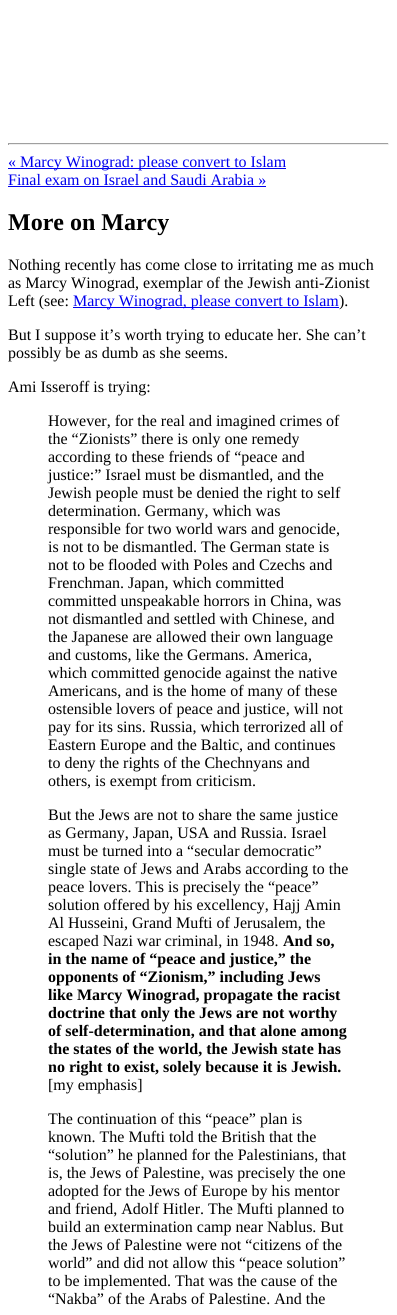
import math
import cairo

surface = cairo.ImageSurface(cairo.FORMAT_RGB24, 397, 1315)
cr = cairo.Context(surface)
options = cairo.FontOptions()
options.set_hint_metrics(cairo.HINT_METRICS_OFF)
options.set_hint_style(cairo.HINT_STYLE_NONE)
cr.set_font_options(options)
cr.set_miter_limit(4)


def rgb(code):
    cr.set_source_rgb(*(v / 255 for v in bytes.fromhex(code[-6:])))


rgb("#ffffff")
cr.paint()
for x, y, w, h, color in [
    (8, 143, 381, 1, "#9f9f9f"),
    (388, 143, 1, 2, "#eeeeee"),
    (8, 144, 381, 1, "#eeeeee"),
    (8, 143, 1, 2, "#9f9f9f"),
    (8, 168, 278, 1, "#0000ee"),
    (8, 186, 258, 1, "#0000ee"),
    (73, 307, 266, 1, "#0000ee"),
]:
    rgb(color)
    cr.rectangle(x, y, w, h)
    cr.fill()
cr.select_font_face("Liberation Serif")
cr.set_font_size(16)
cr.move_to(8, 167)
cr.show_text("« Marcy Winograd: please convert to Islam")
cr.move_to(8, 185)
cr.show_text("Final exam on Israel and Saudi Arabia »")
cr.select_font_face("Liberation Serif", cairo.FONT_SLANT_NORMAL, cairo.FONT_WEIGHT_BOLD)
cr.set_font_size(24)
rgb("#000000")
cr.move_to(8, 230)
cr.show_text("More on Marcy")
cr.select_font_face("Liberation Serif")
cr.set_font_size(16)
for x, y, s in [
    (8, 270, "Nothing recently has come close to irritating me as much"),
    (8, 288, "as Marcy Winograd, exemplar of the Jewish anti-Zionist"),
    (8, 306, "Left (see:"),
]:
    cr.move_to(x, y)
    cr.show_text(s)
rgb("#0000ee")
cr.move_to(73, 306)
cr.show_text("Marcy Winograd, please convert to Islam")
rgb("#000000")
for x, y, s in [
    (339, 306, ")."),
    (8, 340, "But I suppose it’s worth trying to educate her. She can’t"),
    (8, 358, "possibly be as dumb as she seems."),
    (8, 392, "Ami Isseroff is trying:"),
    (48, 426, "However, for the real and imagined crimes of"),
    (48, 444, "the “Zionists” there is only one remedy"),
    (48, 462, "according to these friends of “peace and"),
    (48, 480, "justice:” Israel must be dismantled, and the"),
    (48, 498, "Jewish people must be denied the right to self"),
    (48, 516, "determination. Germany, which was"),
    (48, 534, "responsible for two world wars and genocide,"),
    (48, 552, "is not to be dismantled. The German state is"),
    (48, 570, "not to be flooded with Poles and Czechs and"),
    (48, 588, "Frenchman. Japan, which committed"),
    (48, 606, "committed unspeakable horrors in China, was"),
    (48, 624, "not dismantled and settled with Chinese, and"),
    (48, 642, "the Japanese are allowed their own language"),
    (48, 660, "and customs, like the Germans. America,"),
    (48, 678, "which committed genocide against the native"),
    (48, 696, "Americans, and is the home of many of these"),
    (48, 714, "ostensible lovers of peace and justice, will not"),
    (48, 732, "pay for its sins. Russia, which terrorized all of"),
    (48, 750, "Eastern Europe and the Baltic, and continues"),
    (48, 768, "to deny the rights of the Chechnyans and"),
    (48, 786, "others, is exempt from criticism."),
    (48, 820, "But the Jews are not to share the same justice"),
    (48, 838, "as Germany, Japan, USA and Russia. Israel"),
    (48, 856, "must be turned into a “secular democratic”"),
    (48, 874, "single state of Jews and Arabs according to the"),
    (48, 892, "peace lovers. This is precisely the “peace”"),
    (48, 910, "solution offered by his excellency, Hajj Amin"),
    (48, 928, "Al Husseini, Grand Mufti of Jerusalem, the"),
    (48, 946, "escaped Nazi war criminal, in 1948."),
]:
    cr.move_to(x, y)
    cr.show_text(s)
cr.select_font_face("Liberation Serif", cairo.FONT_SLANT_NORMAL, cairo.FONT_WEIGHT_BOLD)
for x, y, s in [
    (283, 946, "And so,"),
    (48, 964, "in the name of “peace and justice,” the"),
    (48, 982, "opponents of “Zionism,” including Jews"),
    (48, 1000, "like Marcy Winograd, propagate the racist"),
    (48, 1018, "doctrine that only the Jews are not worthy"),
    (48, 1036, "of self-determination, and that alone among"),
    (48, 1054, "the states of the world, the Jewish state has"),
    (48, 1072, "no right to exist, solely because it is Jewish."),
]:
    cr.move_to(x, y)
    cr.show_text(s)
cr.select_font_face("Liberation Serif")
for x, y, s in [
    (48, 1090, "[my emphasis]"),
    (48, 1124, "The continuation of this “peace” plan is"),
    (48, 1142, "known. The Mufti told the British that the"),
    (48, 1160, "“solution” he planned for the Palestinians, that"),
    (48, 1178, "is, the Jews of Palestine, was precisely the one"),
    (48, 1196, "adopted for the Jews of Europe by his mentor"),
    (48, 1214, "and friend, Adolf Hitler. The Mufti planned to"),
    (48, 1232, "build an extermination camp near Nablus. But"),
    (48, 1250, "the Jews of Palestine were not “citizens of the"),
    (48, 1268, "world” and did not allow this “peace solution”"),
    (48, 1286, "to be implemented. That was the cause of the"),
    (48, 1304, "“Nakba” of the Arabs of Palestine. And the"),
]:
    cr.move_to(x, y)
    cr.show_text(s)
surface.write_to_png("page.png")
